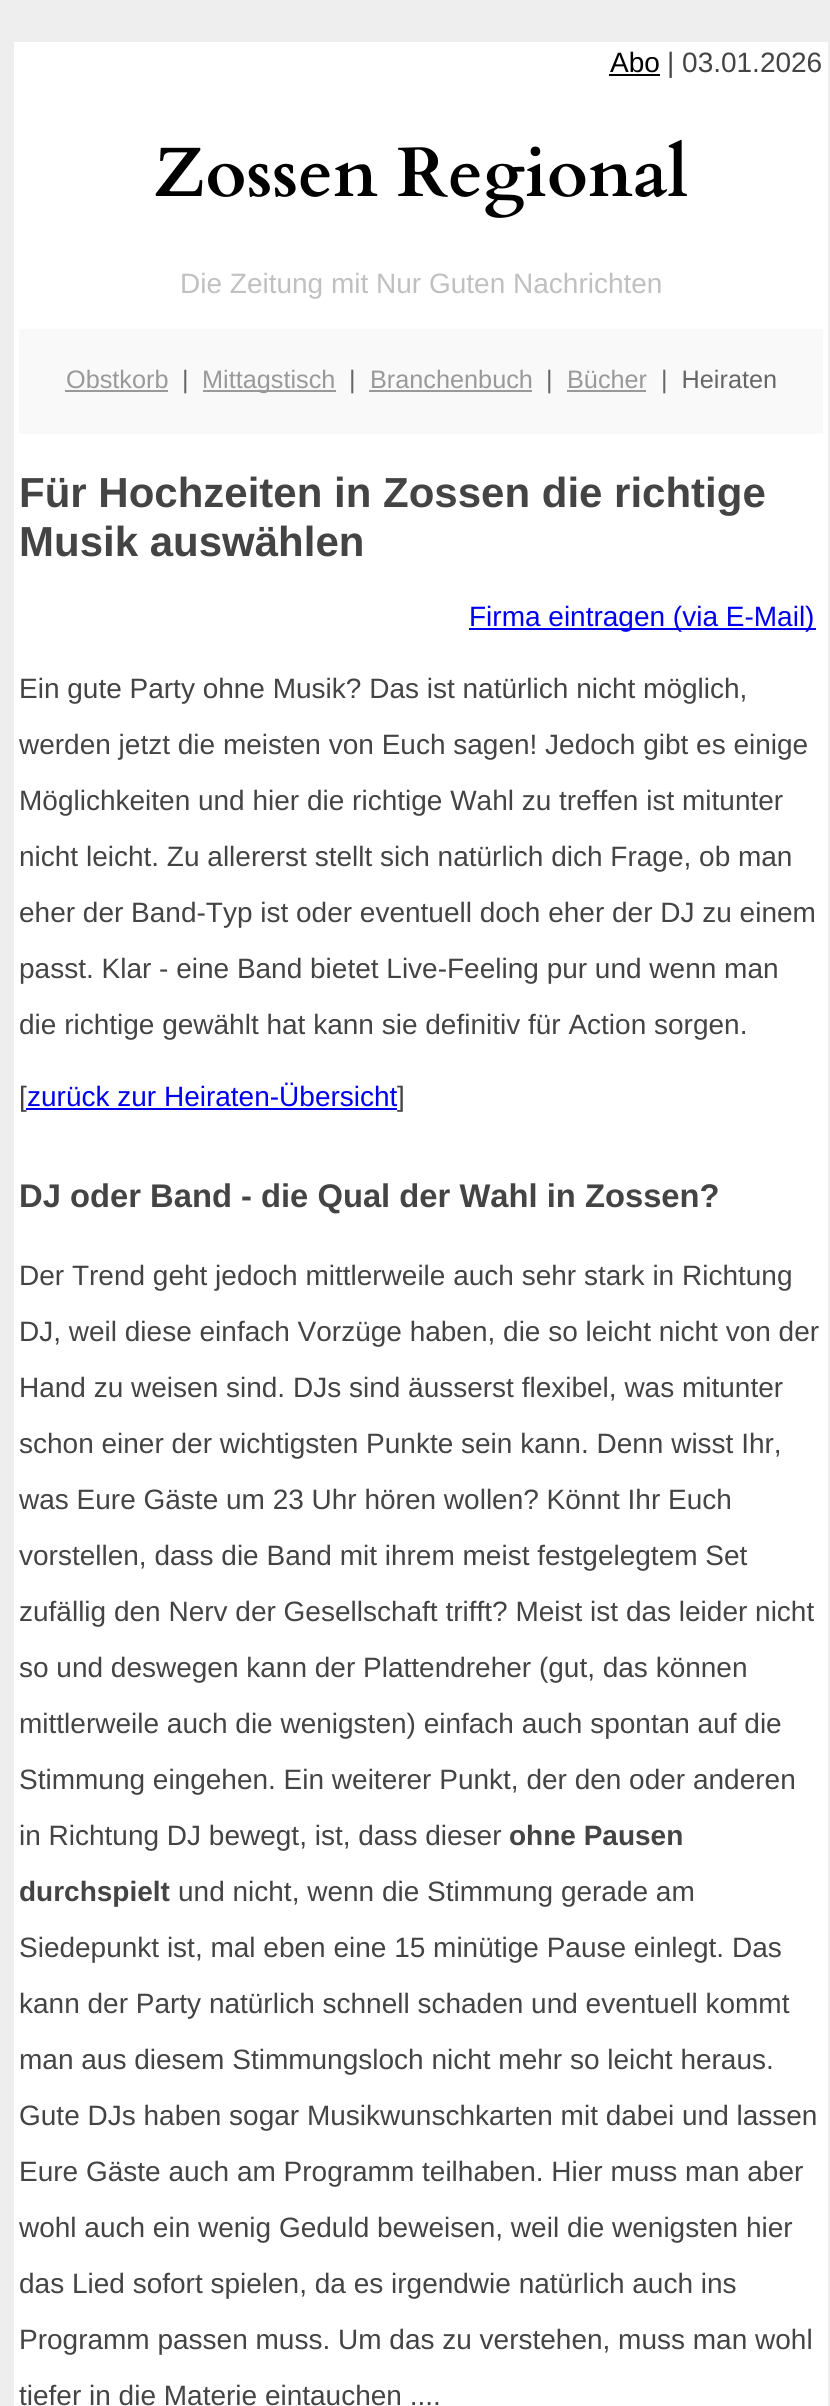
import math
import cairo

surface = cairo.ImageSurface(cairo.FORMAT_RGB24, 830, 2406)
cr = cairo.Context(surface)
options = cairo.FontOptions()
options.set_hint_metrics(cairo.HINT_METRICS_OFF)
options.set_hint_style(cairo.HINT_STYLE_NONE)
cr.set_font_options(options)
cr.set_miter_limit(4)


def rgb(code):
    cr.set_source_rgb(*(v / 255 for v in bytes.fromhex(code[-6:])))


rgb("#eeeeee")
cr.paint()
for x, y, w, h, color in [
    (14, 42, 814, 2364, "#ffffff"),
    (609, 74, 51, 2, "#000000"),
    (19, 329, 804, 105, "#f9f9f9"),
    (65, 390, 103, 2, "#999999"),
    (203, 390, 133, 2, "#999999"),
    (369, 390, 163, 2, "#999999"),
    (567, 390, 79, 2, "#999999"),
    (469, 628, 347, 2, "#0000ee"),
]:
    rgb(color)
    cr.rectangle(x, y, w, h)
    cr.fill()
cr.select_font_face("Liberation Sans")
cr.set_font_size(28)
rgb("#000000")
cr.move_to(610, 72)
cr.show_text("Abo")
rgb("#444444")
cr.move_to(667, 72)
cr.show_text("| 03.01.2026")
cr.select_font_face("Cardo", cairo.FONT_SLANT_NORMAL, cairo.FONT_WEIGHT_BOLD)
cr.set_font_size(70)
rgb("#000000")
cr.move_to(153, 196)
cr.show_text("Zossen Regional")
cr.select_font_face("Liberation Sans")
cr.set_font_size(28)
rgb("#c0c0c0")
cr.move_to(180, 293)
cr.show_text("Die Zeitung mit Nur Guten Nachrichten")
cr.set_font_size(25.25)
rgb("#999999")
cr.move_to(66, 388)
cr.show_text("Obstkorb")
rgb("#666666")
cr.move_to(182, 388)
cr.show_text("|")
rgb("#999999")
cr.move_to(202, 388)
cr.show_text("Mittagstisch")
rgb("#666666")
cr.move_to(349, 388)
cr.show_text("|")
rgb("#999999")
cr.move_to(370, 388)
cr.show_text("Branchenbuch")
rgb("#666666")
cr.move_to(546, 388)
cr.show_text("|")
rgb("#999999")
cr.move_to(567, 388)
cr.show_text("Bücher")
rgb("#666666")
cr.move_to(661, 388)
cr.show_text("|  Heiraten")
cr.select_font_face("Liberation Sans", cairo.FONT_SLANT_NORMAL, cairo.FONT_WEIGHT_BOLD)
cr.set_font_size(42)
rgb("#444444")
cr.move_to(19, 507)
cr.show_text("Für Hochzeiten in Zossen die richtige")
cr.move_to(19, 556)
cr.show_text("Musik auswählen")
cr.select_font_face("Liberation Sans")
cr.set_font_size(28)
rgb("#0000ee")
cr.move_to(469, 626)
cr.show_text("Firma eintragen (via E-Mail)")
rgb("#444444")
for x, y, s in [
    (19, 698, "Ein gute Party ohne Musik? Das ist natürlich nicht möglich,"),
    (19, 754, "werden jetzt die meisten von Euch sagen! Jedoch gibt es einige"),
    (19, 810, "Möglichkeiten und hier die richtige Wahl zu treffen ist mitunter"),
    (19, 866, "nicht leicht. Zu allererst stellt sich natürlich dich Frage, ob man"),
    (19, 922, "eher der Band-Typ ist oder eventuell doch eher der DJ zu einem"),
    (19, 978, "passt. Klar - eine Band bietet Live-Feeling pur und wenn man"),
    (19, 1034, "die richtige gewählt hat kann sie definitiv für Action sorgen."),
    (19, 1106, "["),
]:
    cr.move_to(x, y)
    cr.show_text(s)
rgb("#0000ee")
cr.move_to(27, 1106)
cr.show_text("zurück zur Heiraten-Übersicht")
cr.rectangle(26, 1108, 371, 2)
cr.fill()
rgb("#444444")
cr.move_to(397, 1106)
cr.show_text("]")
cr.select_font_face("Liberation Sans", cairo.FONT_SLANT_NORMAL, cairo.FONT_WEIGHT_BOLD)
cr.set_font_size(32.75)
cr.move_to(19, 1207)
cr.show_text("DJ oder Band - die Qual der Wahl in Zossen?")
cr.select_font_face("Liberation Sans")
cr.set_font_size(28)
for x, y, s in [
    (19, 1285, "Der Trend geht jedoch mittlerweile auch sehr stark in Richtung"),
    (19, 1341, "DJ, weil diese einfach Vorzüge haben, die so leicht nicht von der"),
    (19, 1397, "Hand zu weisen sind. DJs sind äusserst flexibel, was mitunter"),
    (19, 1453, "schon einer der wichtigsten Punkte sein kann. Denn wisst Ihr,"),
    (19, 1509, "was Eure Gäste um 23 Uhr hören wollen? Könnt Ihr Euch"),
    (19, 1565, "vorstellen, dass die Band mit ihrem meist festgelegtem Set"),
    (19, 1621, "zufällig den Nerv der Gesellschaft trifft? Meist ist das leider nicht"),
    (19, 1677, "so und deswegen kann der Plattendreher (gut, das können"),
    (19, 1733, "mittlerweile auch die wenigsten) einfach auch spontan auf die"),
    (19, 1789, "Stimmung eingehen. Ein weiterer Punkt, der den oder anderen"),
    (19, 1845, "in Richtung DJ bewegt, ist, dass dieser"),
]:
    cr.move_to(x, y)
    cr.show_text(s)
cr.select_font_face("Liberation Sans", cairo.FONT_SLANT_NORMAL, cairo.FONT_WEIGHT_BOLD)
cr.move_to(509, 1845)
cr.show_text("ohne Pausen")
cr.move_to(19, 1901)
cr.show_text("durchspielt")
cr.select_font_face("Liberation Sans")
for x, y, s in [
    (178, 1901, "und nicht, wenn die Stimmung gerade am"),
    (19, 1957, "Siedepunkt ist, mal eben eine 15 minütige Pause einlegt. Das"),
    (19, 2013, "kann der Party natürlich schnell schaden und eventuell kommt"),
    (19, 2069, "man aus diesem Stimmungsloch nicht mehr so leicht heraus."),
    (19, 2125, "Gute DJs haben sogar Musikwunschkarten mit dabei und lassen"),
    (19, 2181, "Eure Gäste auch am Programm teilhaben. Hier muss man aber"),
    (19, 2237, "wohl auch ein wenig Geduld beweisen, weil die wenigsten hier"),
    (19, 2293, "das Lied sofort spielen, da es irgendwie natürlich auch ins"),
    (19, 2349, "Programm passen muss. Um das zu verstehen, muss man wohl"),
    (19, 2405, "tiefer in die Materie eintauchen ...."),
]:
    cr.move_to(x, y)
    cr.show_text(s)
surface.write_to_png("page.png")
